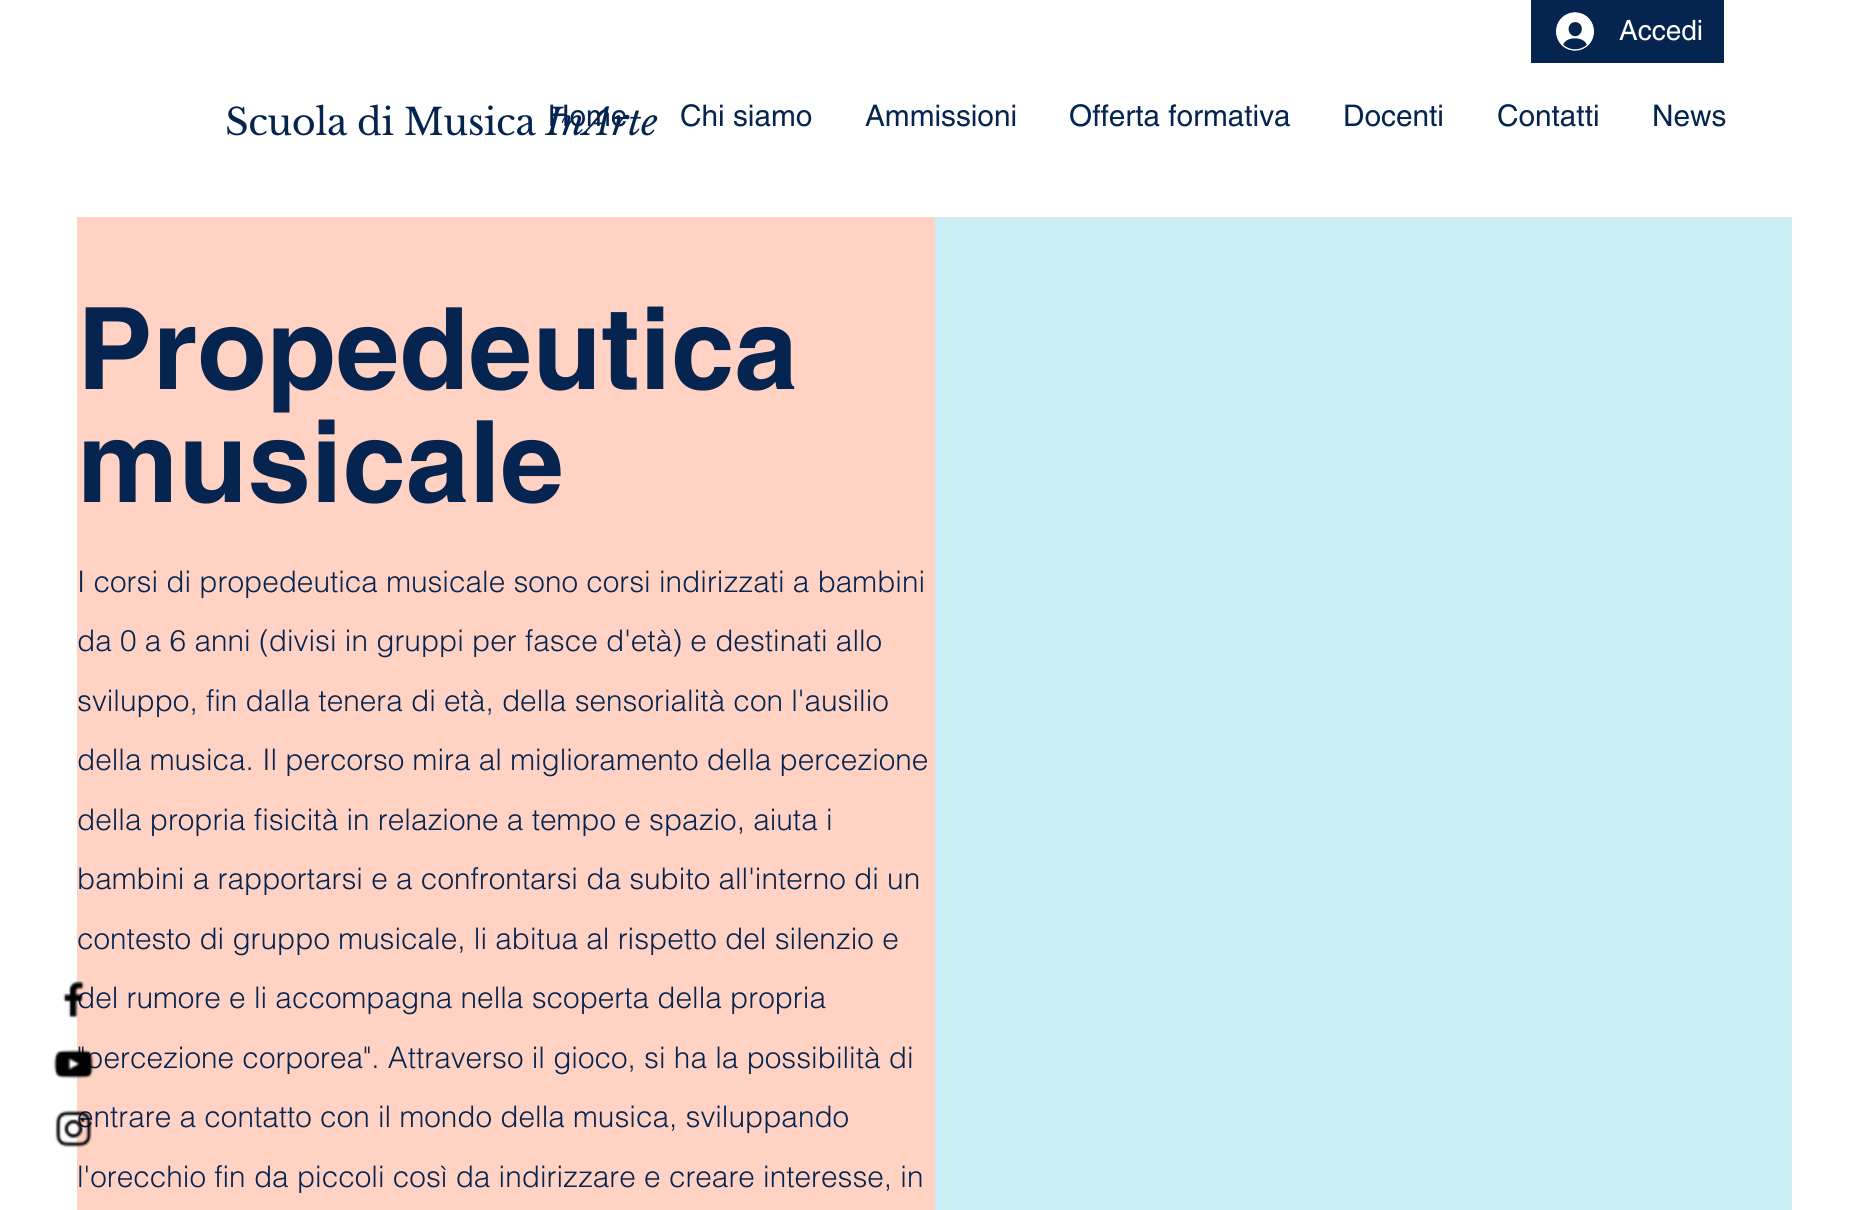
import math
import cairo

surface = cairo.ImageSurface(cairo.FORMAT_RGB24, 1868, 1210)
cr = cairo.Context(surface)
options = cairo.FontOptions()
options.set_hint_metrics(cairo.HINT_METRICS_OFF)
options.set_hint_style(cairo.HINT_STYLE_NONE)
cr.set_font_options(options)
cr.set_miter_limit(4)


def rgb(code):
    cr.set_source_rgb(*(v / 255 for v in bytes.fromhex(code[-6:])))


def tracked(x, y, s, letter, word):
    cr.move_to(x, y)
    for ch in s:
        cr.show_text(ch)
        cr.rel_move_to(letter + word * (ch == ' '), 0)


def image(path, x, y, w, h):
    cr.save()
    cr.set_source_surface(cairo.ImageSurface.create_from_png(path), x, y)
    cr.rectangle(x, y, w, h)
    cr.fill()
    cr.restore()


rgb("#ffffff")
cr.paint()
rgb("#05244f")
cr.rectangle(1531, 0, 193, 63)
cr.fill()
image("img/1.png", 1556, 12, 38, 39)
rgb("#ffd2c4")
cr.rectangle(77, 217, 858, 993)
cr.fill()
rgb("#c9ecf5")
cr.rectangle(935, 217, 857, 993)
cr.fill()
cr.select_font_face("helvetica")
cr.set_font_size(28)
rgb("#ffffff")
cr.move_to(1619, 40)
cr.show_text("Accedi")
cr.select_font_face("Libre Baskerville")
cr.set_font_size(36.75)
rgb("#05244f")
tracked(225, 135, "Scuola di Musica", -0.4, 0)
cr.select_font_face("Libre Baskerville", cairo.FONT_SLANT_ITALIC)
tracked(546, 135, "InArte", -0.4, 0)
cr.select_font_face("helvetica")
cr.set_font_size(29.75)
for x, y, s in [
    (548, 126, "Home"),
    (680, 126, "Chi siamo"),
    (865, 126, "Ammissioni"),
    (1069, 126, "Offerta formativa"),
    (1343, 126, "Docenti"),
    (1497, 126, "Contatti"),
    (1652, 126, "News"),
]:
    cr.move_to(x, y)
    cr.show_text(s)
cr.select_font_face("helvetica", cairo.FONT_SLANT_NORMAL, cairo.FONT_WEIGHT_BOLD)
cr.set_font_size(113.75)
cr.move_to(77, 389)
cr.show_text("Propedeutica")
cr.move_to(77, 502)
cr.show_text("musicale")
cr.select_font_face("helvetica Light")
cr.set_font_size(29.75)
for x, y, s in [
    (77, 592, "I corsi di propedeutica musicale sono corsi indirizzati a bambini"),
    (77, 651, "da 0 a 6 anni (divisi in gruppi per fasce d'età) e destinati allo"),
    (77, 711, "sviluppo, fin dalla tenera di età, della sensorialità con l'ausilio"),
    (77, 770, "della musica. Il percorso mira al miglioramento della percezione"),
    (77, 830, "della propria fisicità in relazione a tempo e spazio, aiuta i"),
    (77, 889, "bambini a rapportarsi e a confrontarsi da subito all'interno di un"),
    (77, 949, "contesto di gruppo musicale, li abitua al rispetto del silenzio e"),
    (77, 1008, "del rumore e li accompagna nella scoperta della propria"),
]:
    cr.move_to(x, y)
    cr.show_text(s)
image("img/2.png", 63, 981, 22, 37)
cr.move_to(77, 1068)
cr.show_text("\"percezione corporea\". Attraverso il gioco, si ha la possibilità di")
image("img/3.png", 53, 1049, 41, 30)
cr.move_to(77, 1127)
cr.show_text("entrare a contatto con il mondo della musica, sviluppando")
image("img/4.png", 55, 1110, 37, 38)
cr.move_to(77, 1187)
cr.show_text("l'orecchio fin da piccoli così da indirizzare e creare interesse, in")
surface.write_to_png("page.png")
